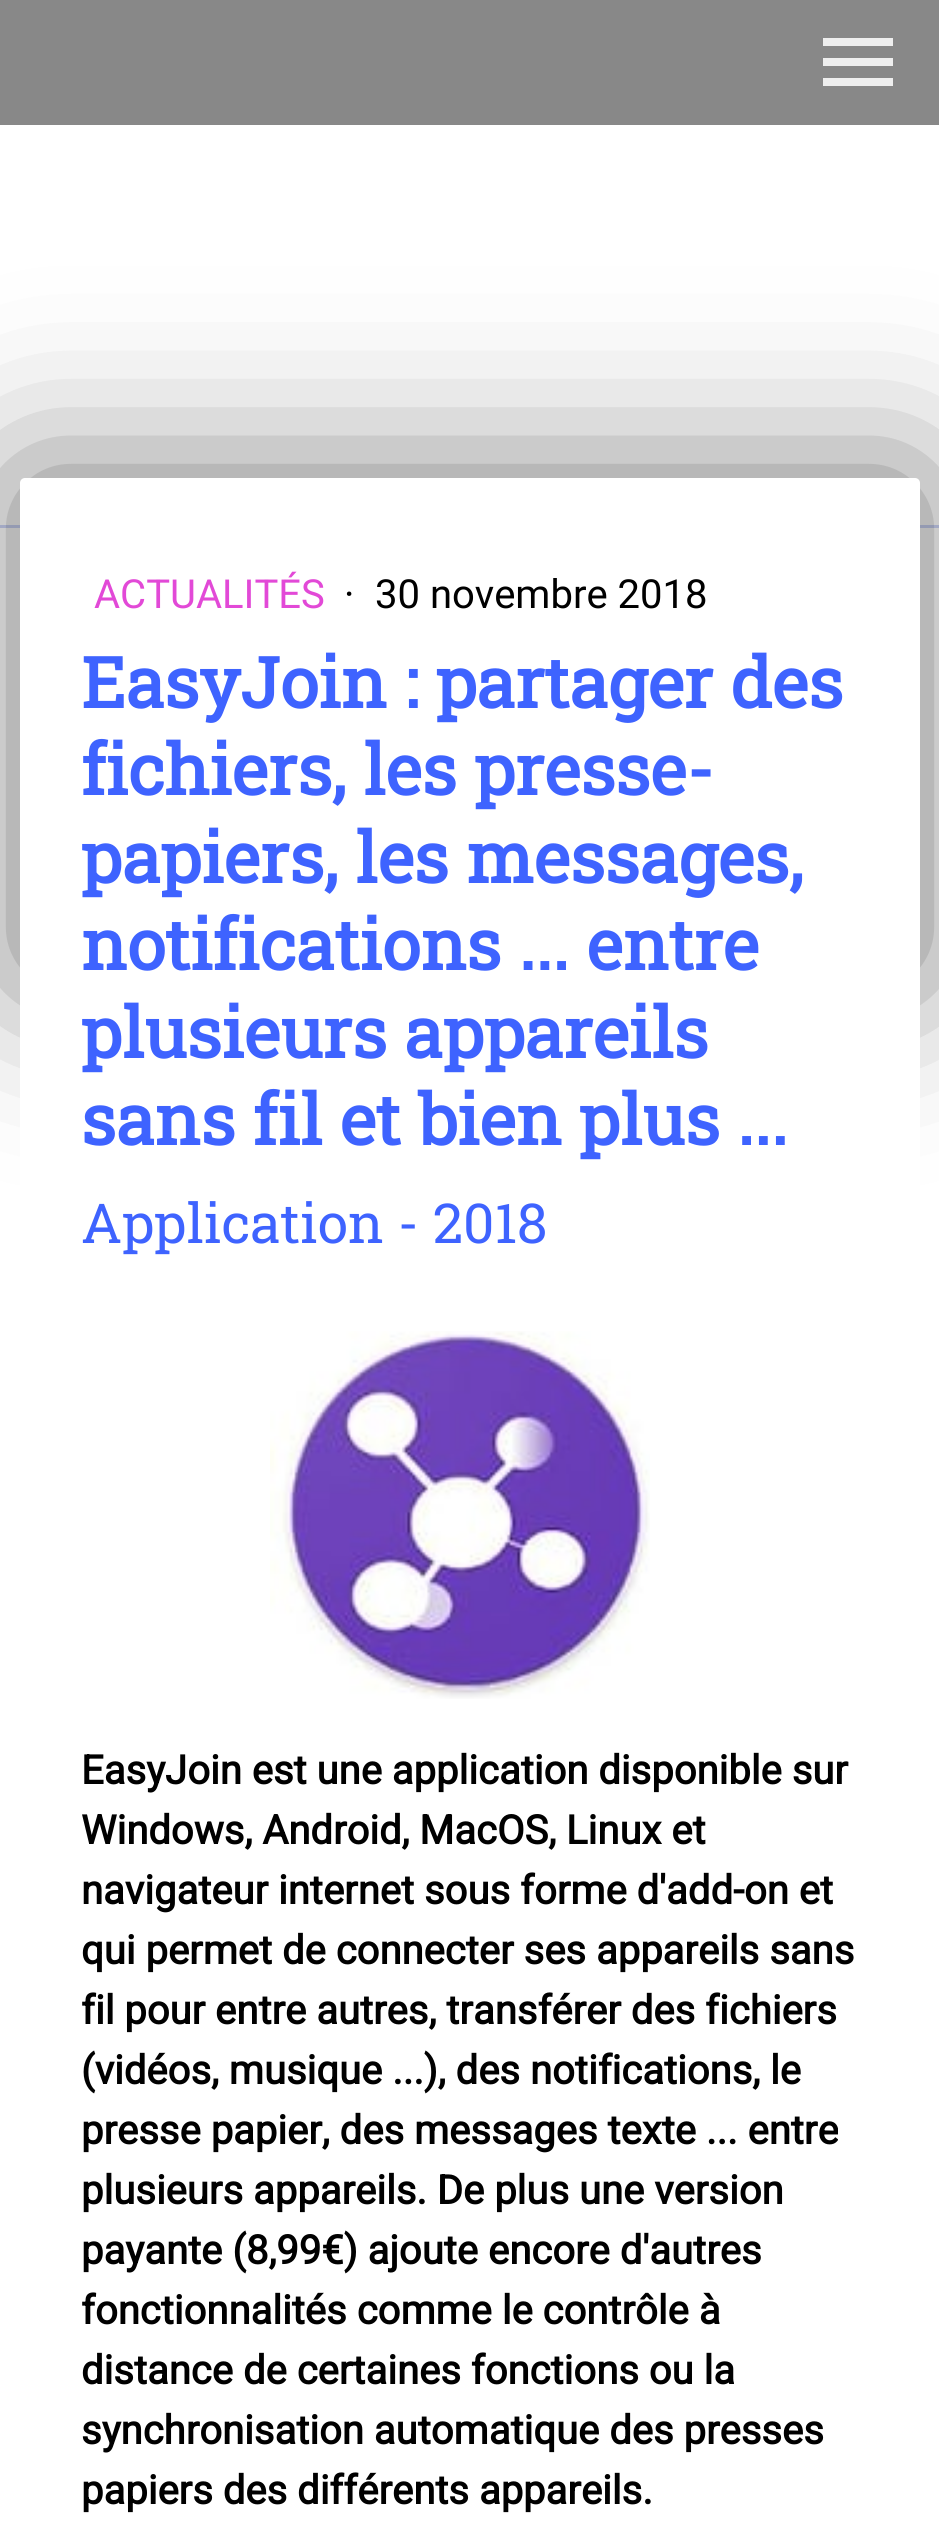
import math
import cairo

surface = cairo.ImageSurface(cairo.FORMAT_RGB24, 939, 2525)
cr = cairo.Context(surface)
options = cairo.FontOptions()
options.set_hint_metrics(cairo.HINT_METRICS_OFF)
options.set_hint_style(cairo.HINT_STYLE_NONE)
cr.set_font_options(options)
cr.set_miter_limit(4)


def rgb(code):
    cr.set_source_rgb(*(v / 255 for v in bytes.fromhex(code[-6:])))


def rrect(x, y, w, h, r):
    cr.new_sub_path()
    for i, (u, v) in enumerate([(x + w - r, y + h - r), (x + r, y + h - r), (x + r, y + r), (x + w - r, y + r)]):
        cr.arc(u, v, r, i * math.pi / 2, (i + 1) * math.pi / 2)
    cr.close_path()


def soft_shadow(x, y, w, h, r, blur, alpha):
    cr.push_group_with_content(cairo.CONTENT_ALPHA)
    cr.set_operator(cairo.OPERATOR_SOURCE)
    for i in range(15, -16, -2):
        e = blur * i / 6
        if min(w, h) + 2 * e > 0:
            cr.set_source_rgba(0, 0, 0, alpha * math.erfc((i - 1) / 8.5) / 2)
            rrect(x - e, y - e, w + 2 * e, h + 2 * e, max(0, min(r + e + blur * .6, min(w, h) / 2 + e)))
            cr.fill()
    cr.mask(cr.pop_group())


def image(path, x, y, w, h):
    cr.save()
    cr.set_source_surface(cairo.ImageSurface.create_from_png(path), x, y)
    cr.rectangle(x, y, w, h)
    cr.fill()
    cr.restore()


rgb("#ffffff")
cr.paint()
for x, y, w, h, color in [
    (0, 0, 939, 125, "#888888"),
    (823, 58, 70, 8, "#eeeeee"),
    (823, 38, 70, 8, "#eeeeee"),
    (823, 78, 70, 8, "#eeeeee"),
    (0, 525, 939, 3, "#ccd4f6"),
]:
    rgb(color)
    cr.rectangle(x, y, w, h)
    cr.fill()
rgb("#111111")
soft_shadow(20, 478, 900, 500, 0, 85, 0.6)
rgb("#ffffff")
rrect(20, 478, 900, 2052, 5)
cr.fill()
image("img/1.png", 270, 1331, 380, 368)
cr.select_font_face("Roboto")
cr.set_font_size(40)
rgb("#e249d7")
cr.move_to(94, 608)
cr.show_text("ACTUALITÉS")
rgb("#000000")
cr.move_to(344, 608)
cr.show_text("·")
cr.move_to(375, 608)
cr.show_text("30 novembre 2018")
cr.select_font_face("Roboto Slab", cairo.FONT_SLANT_NORMAL, cairo.FONT_WEIGHT_BOLD)
cr.set_font_size(70)
rgb("#3e63ff")
for x, y, s in [
    (81, 708, "EasyJoin : partager des"),
    (81, 795, "fichiers, les presse-"),
    (81, 883, "papiers, les messages,"),
    (81, 970, "notifications ... entre"),
    (81, 1058, "plusieurs appareils"),
    (81, 1145, "sans fil et bien plus ..."),
]:
    cr.move_to(x, y)
    cr.show_text(s)
cr.select_font_face("Roboto Slab")
cr.set_font_size(55)
cr.move_to(81, 1243)
cr.show_text("Application - 2018")
cr.select_font_face("Roboto", cairo.FONT_SLANT_NORMAL, cairo.FONT_WEIGHT_BOLD)
cr.set_font_size(40)
rgb("#000000")
for x, y, s in [
    (81, 1784, "EasyJoin est une application disponible sur"),
    (81, 1844, "Windows, Android, MacOS, Linux et"),
    (81, 1904, "navigateur internet sous forme d'add-on et"),
    (81, 1964, "qui permet de connecter ses appareils sans"),
    (81, 2024, "fil pour entre autres, transférer des fichiers"),
    (81, 2084, "(vidéos, musique ...), des notifications, le"),
    (81, 2144, "presse papier, des messages texte ... entre"),
    (81, 2204, "plusieurs appareils. De plus une version"),
    (81, 2264, "payante (8,99€) ajoute encore d'autres"),
    (81, 2324, "fonctionnalités comme le contrôle à"),
    (81, 2384, "distance de certaines fonctions ou la"),
    (81, 2444, "synchronisation automatique des presses"),
    (81, 2504, "papiers des différents appareils."),
]:
    cr.move_to(x, y)
    cr.show_text(s)
surface.write_to_png("page.png")
